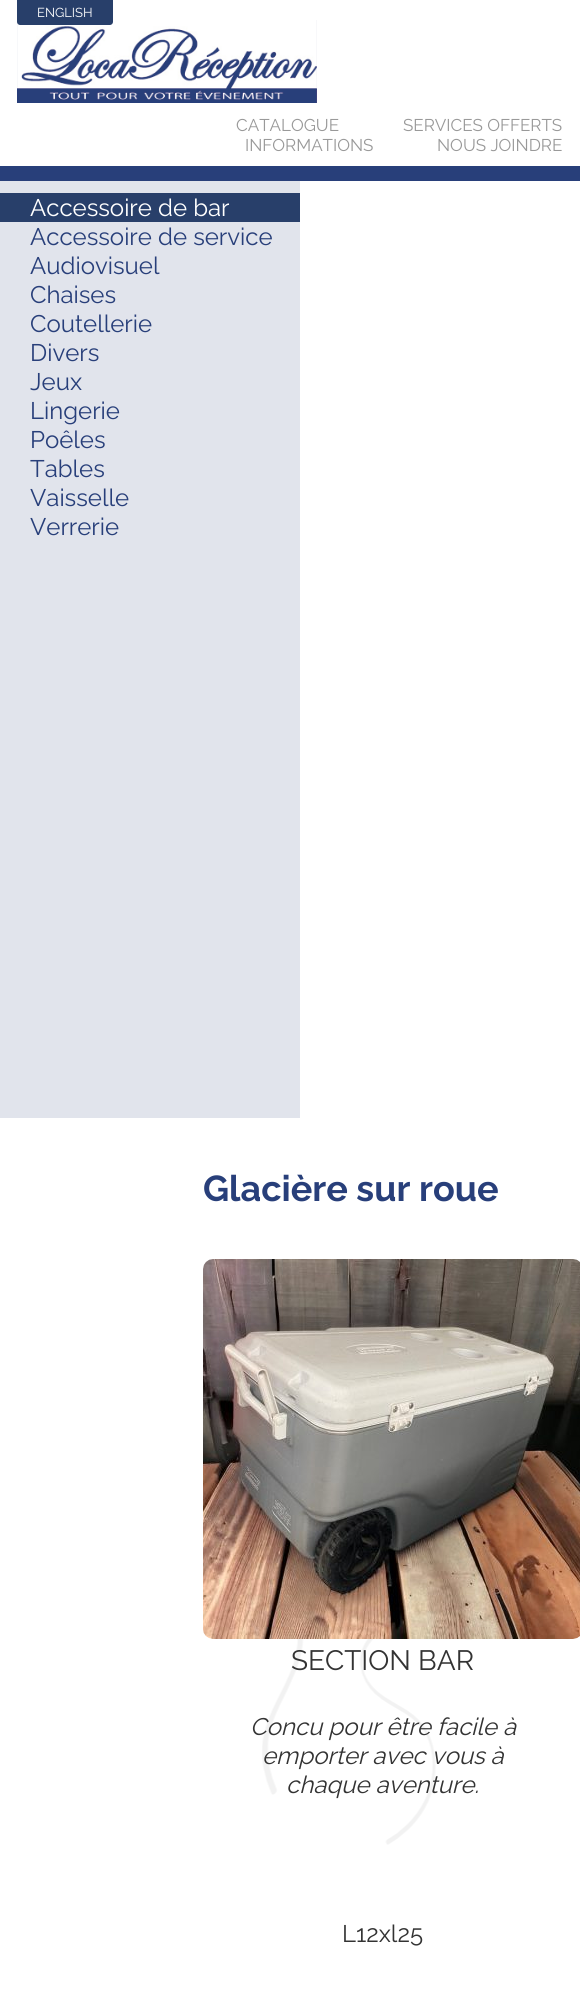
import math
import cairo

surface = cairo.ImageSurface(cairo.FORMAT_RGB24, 580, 2008)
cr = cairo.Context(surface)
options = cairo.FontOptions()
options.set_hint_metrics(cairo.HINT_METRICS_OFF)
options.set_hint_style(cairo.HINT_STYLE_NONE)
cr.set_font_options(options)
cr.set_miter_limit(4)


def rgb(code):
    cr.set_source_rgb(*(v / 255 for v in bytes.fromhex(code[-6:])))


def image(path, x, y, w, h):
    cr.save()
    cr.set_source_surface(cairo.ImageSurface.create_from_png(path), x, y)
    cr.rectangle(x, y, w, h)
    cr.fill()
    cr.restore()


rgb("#ffffff")
cr.paint()
image("img/1.png", 17, 20, 300, 83)
rgb("#283f6a")
cr.new_path()
cr.move_to(17, 0)
cr.line_to(113, 0)
cr.line_to(113, 22)
cr.curve_to(113, 23.5, 111.5, 25, 110, 25)
cr.line_to(20, 25)
cr.curve_to(18.5, 25, 17, 23.5, 17, 22)
cr.close_path()
cr.fill()
for x, y, w, h, color in [
    (0, 166, 580, 15, "#283f7a"),
    (0, 181, 300, 937, "#e1e4ec"),
    (0, 193, 300, 29, "#283f6a"),
]:
    rgb(color)
    cr.rectangle(x, y, w, h)
    cr.fill()
image("img/2.png", 262, 1639, 210, 206)
image("img/3.png", 203, 1259, 377, 380)
cr.select_font_face("Raleway")
cr.set_font_size(13)
rgb("#ffffff")
cr.move_to(37, 17)
cr.show_text("ENGLISH")
cr.set_font_size(17)
rgb("#999999")
for x, y, s in [
    (236, 131, "CATALOGUE"),
    (403, 131, "SERVICES OFFERTS"),
    (245, 151, "INFORMATIONS"),
    (437, 151, "NOUS JOINDRE"),
]:
    cr.move_to(x, y)
    cr.show_text(s)
cr.set_font_size(24)
rgb("#ffffff")
cr.move_to(30, 216)
cr.show_text("Accessoire de bar")
rgb("#283f7a")
for x, y, s in [
    (30, 245, "Accessoire de service"),
    (30, 274, "Audiovisuel"),
    (30, 303, "Chaises"),
    (30, 332, "Coutellerie"),
    (30, 361, "Divers"),
    (30, 390, "Jeux"),
    (30, 419, "Lingerie"),
    (30, 448, "Poêles"),
    (30, 477, "Tables"),
    (30, 506, "Vaisselle"),
    (30, 535, "Verrerie"),
]:
    cr.move_to(x, y)
    cr.show_text(s)
cr.select_font_face("Raleway", cairo.FONT_SLANT_NORMAL, cairo.FONT_WEIGHT_BOLD)
cr.set_font_size(36)
cr.move_to(203, 1201)
cr.show_text("Glacière sur roue")
cr.select_font_face("Raleway")
cr.set_font_size(28)
rgb("#333333")
cr.move_to(291, 1670)
cr.show_text("SECTION BAR")
cr.select_font_face("Raleway", cairo.FONT_SLANT_ITALIC)
cr.set_font_size(24)
for x, y, s in [
    (250, 1735, "Concu pour être facile à"),
    (262, 1764, "emporter avec vous à"),
    (286, 1793, "chaque aventure."),
]:
    cr.move_to(x, y)
    cr.show_text(s)
cr.select_font_face("Raleway")
cr.move_to(342, 1942)
cr.show_text("L12xl25")
surface.write_to_png("page.png")
